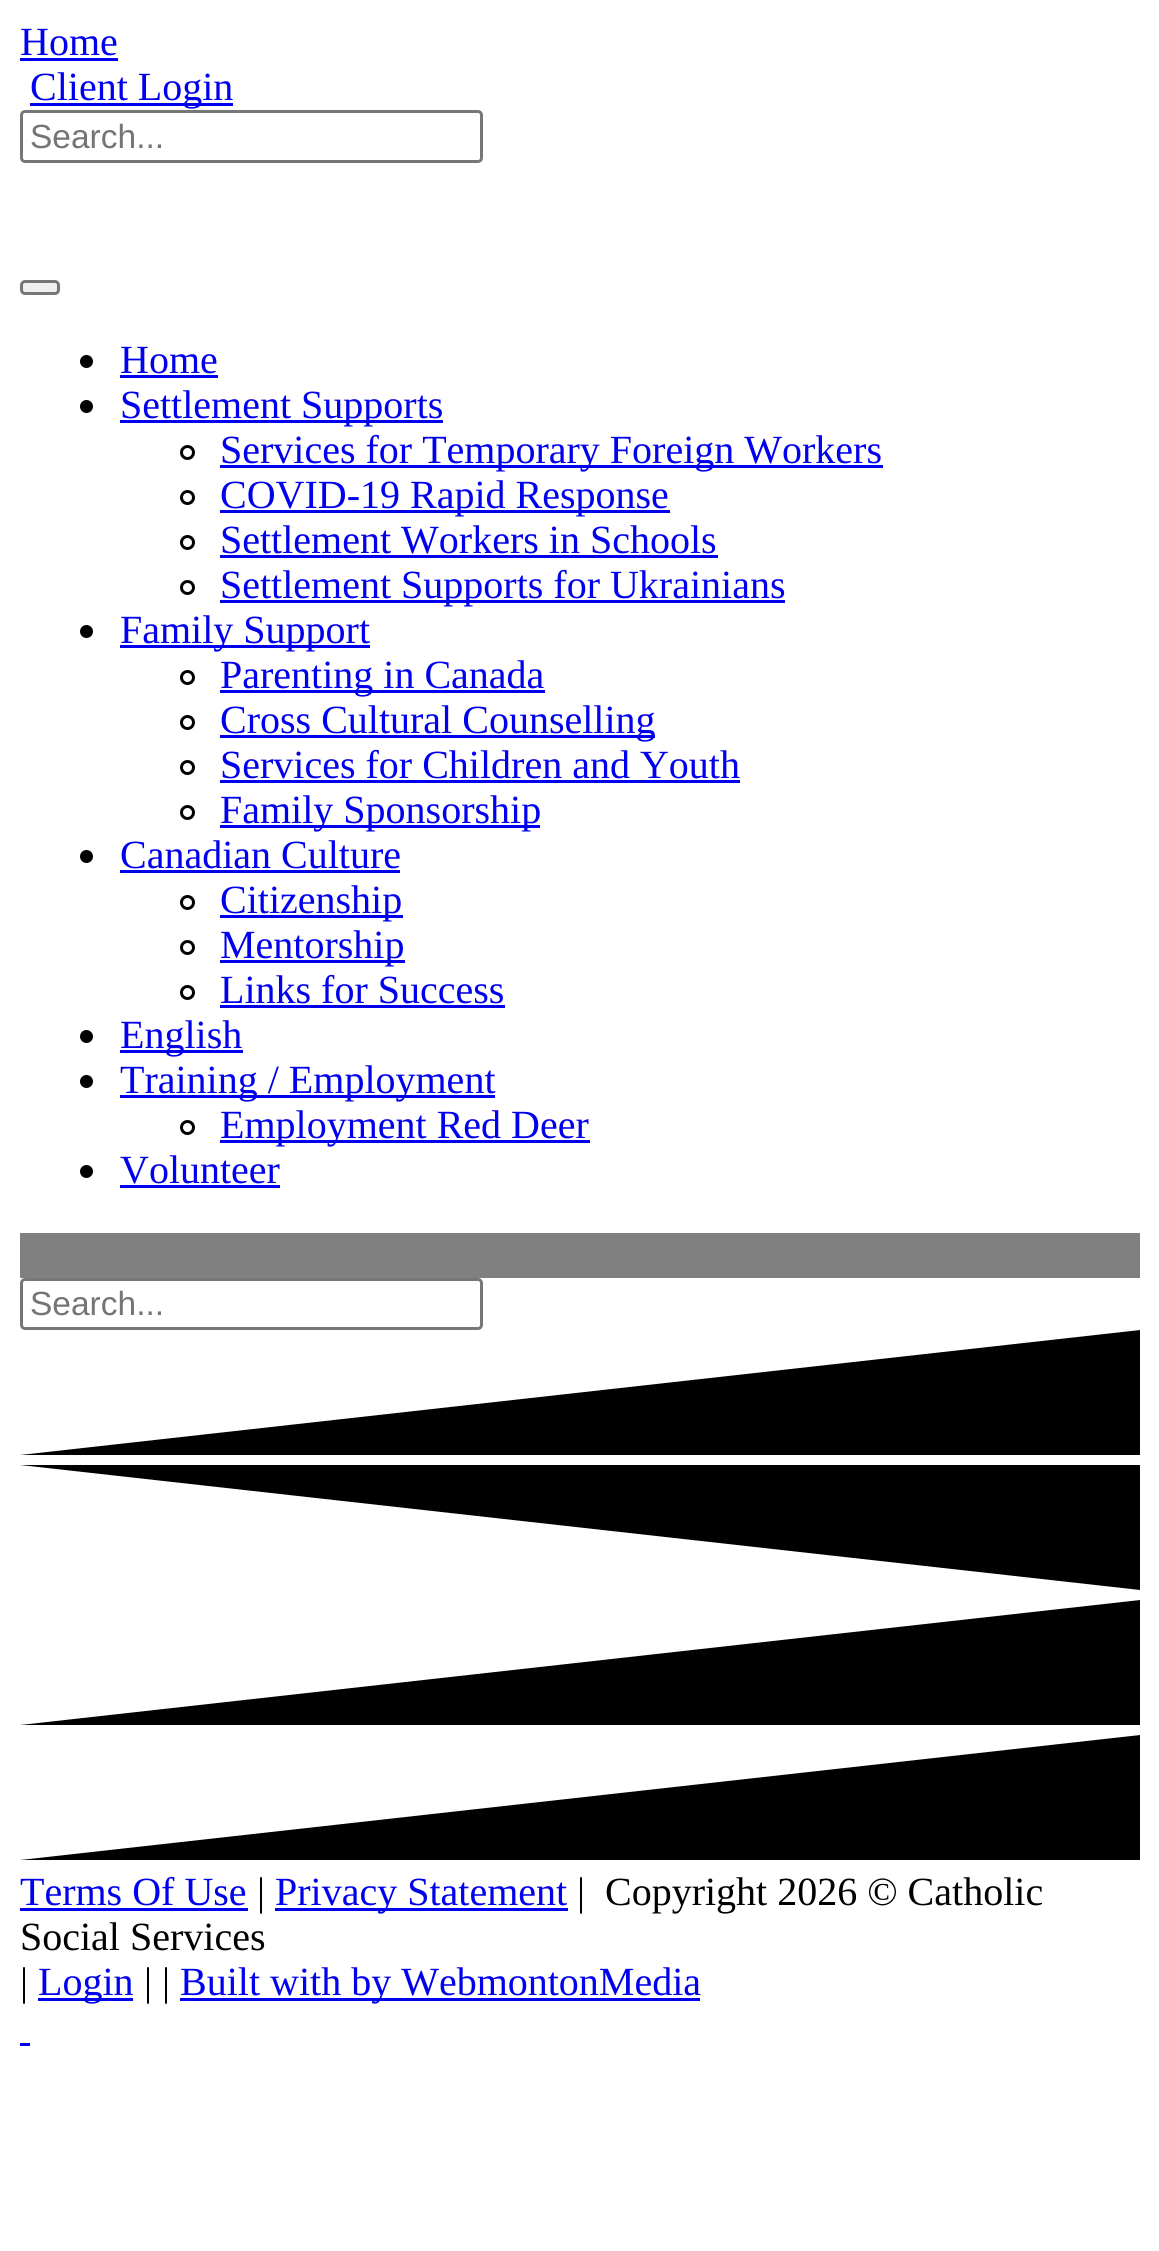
import math
import cairo

surface = cairo.ImageSurface(cairo.FORMAT_RGB24, 1159, 2251)
cr = cairo.Context(surface)
options = cairo.FontOptions()
options.set_hint_metrics(cairo.HINT_METRICS_OFF)
options.set_hint_style(cairo.HINT_STYLE_NONE)
cr.set_font_options(options)
cr.set_miter_limit(4)


def rgb(code):
    cr.set_source_rgb(*(v / 255 for v in bytes.fromhex(code[-6:])))


def rrect(x, y, w, h, r):
    cr.new_sub_path()
    for i, (u, v) in enumerate([(x + w - r, y + h - r), (x + r, y + h - r), (x + r, y + r), (x + w - r, y + r)]):
        cr.arc(u, v, r, i * math.pi / 2, (i + 1) * math.pi / 2)
    cr.close_path()


rgb("#ffffff")
cr.paint()
rgb("#0000ee")
cr.rectangle(20, 58, 98, 3)
cr.fill()
cr.rectangle(30, 103, 203, 3)
cr.fill()
rrect(21.5, 111.5, 460, 50, 3.5)
rgb("#767676")
cr.set_line_width(3)
cr.stroke()
rgb("#efefef")
rrect(21.5, 281.5, 37, 12, 3.5)
cr.fill_preserve()
rgb("#767676")
cr.stroke()
rgb("#000000")
cr.arc(86.5, 361.5, 6.5, 0, 2 * math.pi)
cr.fill()
rgb("#0000ee")
cr.rectangle(120, 375, 98, 3)
cr.fill()
rgb("#000000")
cr.arc(86.5, 406.5, 6.5, 0, 2 * math.pi)
cr.fill()
rgb("#0000ee")
cr.rectangle(120, 420, 323, 3)
cr.fill()
cr.arc(187.5, 452.5, 6, 0, 2 * math.pi)
rgb("#000000")
cr.stroke()
rgb("#0000ee")
cr.rectangle(220, 465, 663, 3)
cr.fill()
cr.arc(187.5, 497.5, 6, 0, 2 * math.pi)
rgb("#000000")
cr.stroke()
rgb("#0000ee")
cr.rectangle(220, 510, 450, 3)
cr.fill()
cr.arc(187.5, 542.5, 6, 0, 2 * math.pi)
rgb("#000000")
cr.stroke()
rgb("#0000ee")
cr.rectangle(220, 555, 498, 3)
cr.fill()
cr.arc(187.5, 587.5, 6, 0, 2 * math.pi)
rgb("#000000")
cr.stroke()
rgb("#0000ee")
cr.rectangle(220, 600, 565, 3)
cr.fill()
rgb("#000000")
cr.arc(86.5, 631.5, 6.5, 0, 2 * math.pi)
cr.fill()
rgb("#0000ee")
cr.rectangle(120, 645, 250, 3)
cr.fill()
cr.arc(187.5, 677.5, 6, 0, 2 * math.pi)
rgb("#000000")
cr.stroke()
rgb("#0000ee")
cr.rectangle(220, 690, 325, 3)
cr.fill()
cr.arc(187.5, 722.5, 6, 0, 2 * math.pi)
rgb("#000000")
cr.stroke()
rgb("#0000ee")
cr.rectangle(220, 735, 435, 3)
cr.fill()
cr.arc(187.5, 767.5, 6, 0, 2 * math.pi)
rgb("#000000")
cr.stroke()
rgb("#0000ee")
cr.rectangle(220, 780, 520, 3)
cr.fill()
cr.arc(187.5, 812.5, 6, 0, 2 * math.pi)
rgb("#000000")
cr.stroke()
rgb("#0000ee")
cr.rectangle(220, 825, 320, 3)
cr.fill()
rgb("#000000")
cr.arc(86.5, 856.5, 6.5, 0, 2 * math.pi)
cr.fill()
rgb("#0000ee")
cr.rectangle(120, 870, 280, 3)
cr.fill()
cr.arc(187.5, 902.5, 6, 0, 2 * math.pi)
rgb("#000000")
cr.stroke()
rgb("#0000ee")
cr.rectangle(220, 915, 183, 3)
cr.fill()
cr.arc(187.5, 947.5, 6, 0, 2 * math.pi)
rgb("#000000")
cr.stroke()
rgb("#0000ee")
cr.rectangle(220, 960, 185, 3)
cr.fill()
cr.arc(187.5, 992.5, 6, 0, 2 * math.pi)
rgb("#000000")
cr.stroke()
rgb("#0000ee")
cr.rectangle(220, 1005, 285, 3)
cr.fill()
rgb("#000000")
cr.arc(86.5, 1036.5, 6.5, 0, 2 * math.pi)
cr.fill()
rgb("#0000ee")
cr.rectangle(120, 1050, 123, 3)
cr.fill()
rgb("#000000")
cr.arc(86.5, 1081.5, 6.5, 0, 2 * math.pi)
cr.fill()
rgb("#0000ee")
cr.rectangle(120, 1095, 375, 3)
cr.fill()
cr.arc(187.5, 1127.5, 6, 0, 2 * math.pi)
rgb("#000000")
cr.stroke()
rgb("#0000ee")
cr.rectangle(220, 1140, 370, 3)
cr.fill()
rgb("#000000")
cr.arc(86.5, 1171.5, 6.5, 0, 2 * math.pi)
cr.fill()
rgb("#0000ee")
cr.rectangle(120, 1185, 160, 3)
cr.fill()
rgb("#808080")
cr.rectangle(20, 1233, 1120, 45)
cr.fill()
rrect(21.5, 1279.5, 460, 49, 3.5)
rgb("#767676")
cr.stroke()
rgb("#000000")
cr.new_path()
cr.move_to(20, 1455)
cr.line_to(1140, 1330)
cr.line_to(1140, 1455)
cr.close_path()
cr.fill()
cr.new_path()
cr.move_to(20, 1465)
cr.line_to(1140, 1590)
cr.line_to(1140, 1465)
cr.close_path()
cr.fill()
cr.new_path()
cr.move_to(20, 1725)
cr.line_to(1140, 1600)
cr.line_to(1140, 1725)
cr.close_path()
cr.fill()
cr.new_path()
cr.move_to(20, 1860)
cr.line_to(1140, 1735)
cr.line_to(1140, 1860)
cr.close_path()
cr.fill()
for x, y, w, h, color in [
    (20, 1908, 228, 3, "#0000ee"),
    (275, 1908, 293, 3, "#0000ee"),
    (38, 1998, 95, 3, "#0000ee"),
    (180, 1998, 520, 3, "#0000ee"),
    (20, 2043, 10, 3, "#0000ee"),
]:
    rgb(color)
    cr.rectangle(x, y, w, h)
    cr.fill()
cr.select_font_face("Liberation Serif")
cr.set_font_size(40)
cr.move_to(20, 55)
cr.show_text("Home")
cr.move_to(30, 100)
cr.show_text("Client Login")
cr.select_font_face("Liberation Sans")
cr.set_font_size(33.5)
rgb("#757575")
cr.move_to(30, 148)
cr.show_text("Search...")
cr.select_font_face("Liberation Serif")
cr.set_font_size(40)
rgb("#0000ee")
for x, y, s in [
    (120, 373, "Home"),
    (120, 418, "Settlement Supports"),
    (220, 463, "Services for Temporary Foreign Workers"),
    (220, 508, "COVID-19 Rapid Response"),
    (220, 553, "Settlement Workers in Schools"),
    (220, 598, "Settlement Supports for Ukrainians"),
    (120, 643, "Family Support"),
    (220, 688, "Parenting in Canada"),
    (220, 733, "Cross Cultural Counselling"),
    (220, 778, "Services for Children and Youth"),
    (220, 823, "Family Sponsorship"),
    (120, 868, "Canadian Culture"),
    (220, 913, "Citizenship"),
    (220, 958, "Mentorship"),
    (220, 1003, "Links for Success"),
    (120, 1048, "English"),
    (120, 1093, "Training / Employment"),
    (220, 1138, "Employment Red Deer"),
    (120, 1183, "Volunteer"),
]:
    cr.move_to(x, y)
    cr.show_text(s)
cr.select_font_face("Liberation Sans")
cr.set_font_size(33.5)
rgb("#757575")
cr.move_to(30, 1315)
cr.show_text("Search...")
cr.select_font_face("Liberation Serif")
cr.set_font_size(40)
rgb("#0000ee")
cr.move_to(20, 1905)
cr.show_text("Terms Of Use")
rgb("#000000")
cr.move_to(257, 1905)
cr.show_text("|")
rgb("#0000ee")
cr.move_to(275, 1905)
cr.show_text("Privacy Statement")
rgb("#000000")
for x, y, s in [
    (577, 1905, "|"),
    (605, 1905, "Copyright 2026 © Catholic"),
    (20, 1950, "Social Services"),
    (20, 1995, "|"),
]:
    cr.move_to(x, y)
    cr.show_text(s)
rgb("#0000ee")
cr.move_to(38, 1995)
cr.show_text("Login")
rgb("#000000")
cr.move_to(144, 1995)
cr.show_text("| |")
rgb("#0000ee")
cr.move_to(180, 1995)
cr.show_text("Built with by WebmontonMedia")
surface.write_to_png("page.png")
